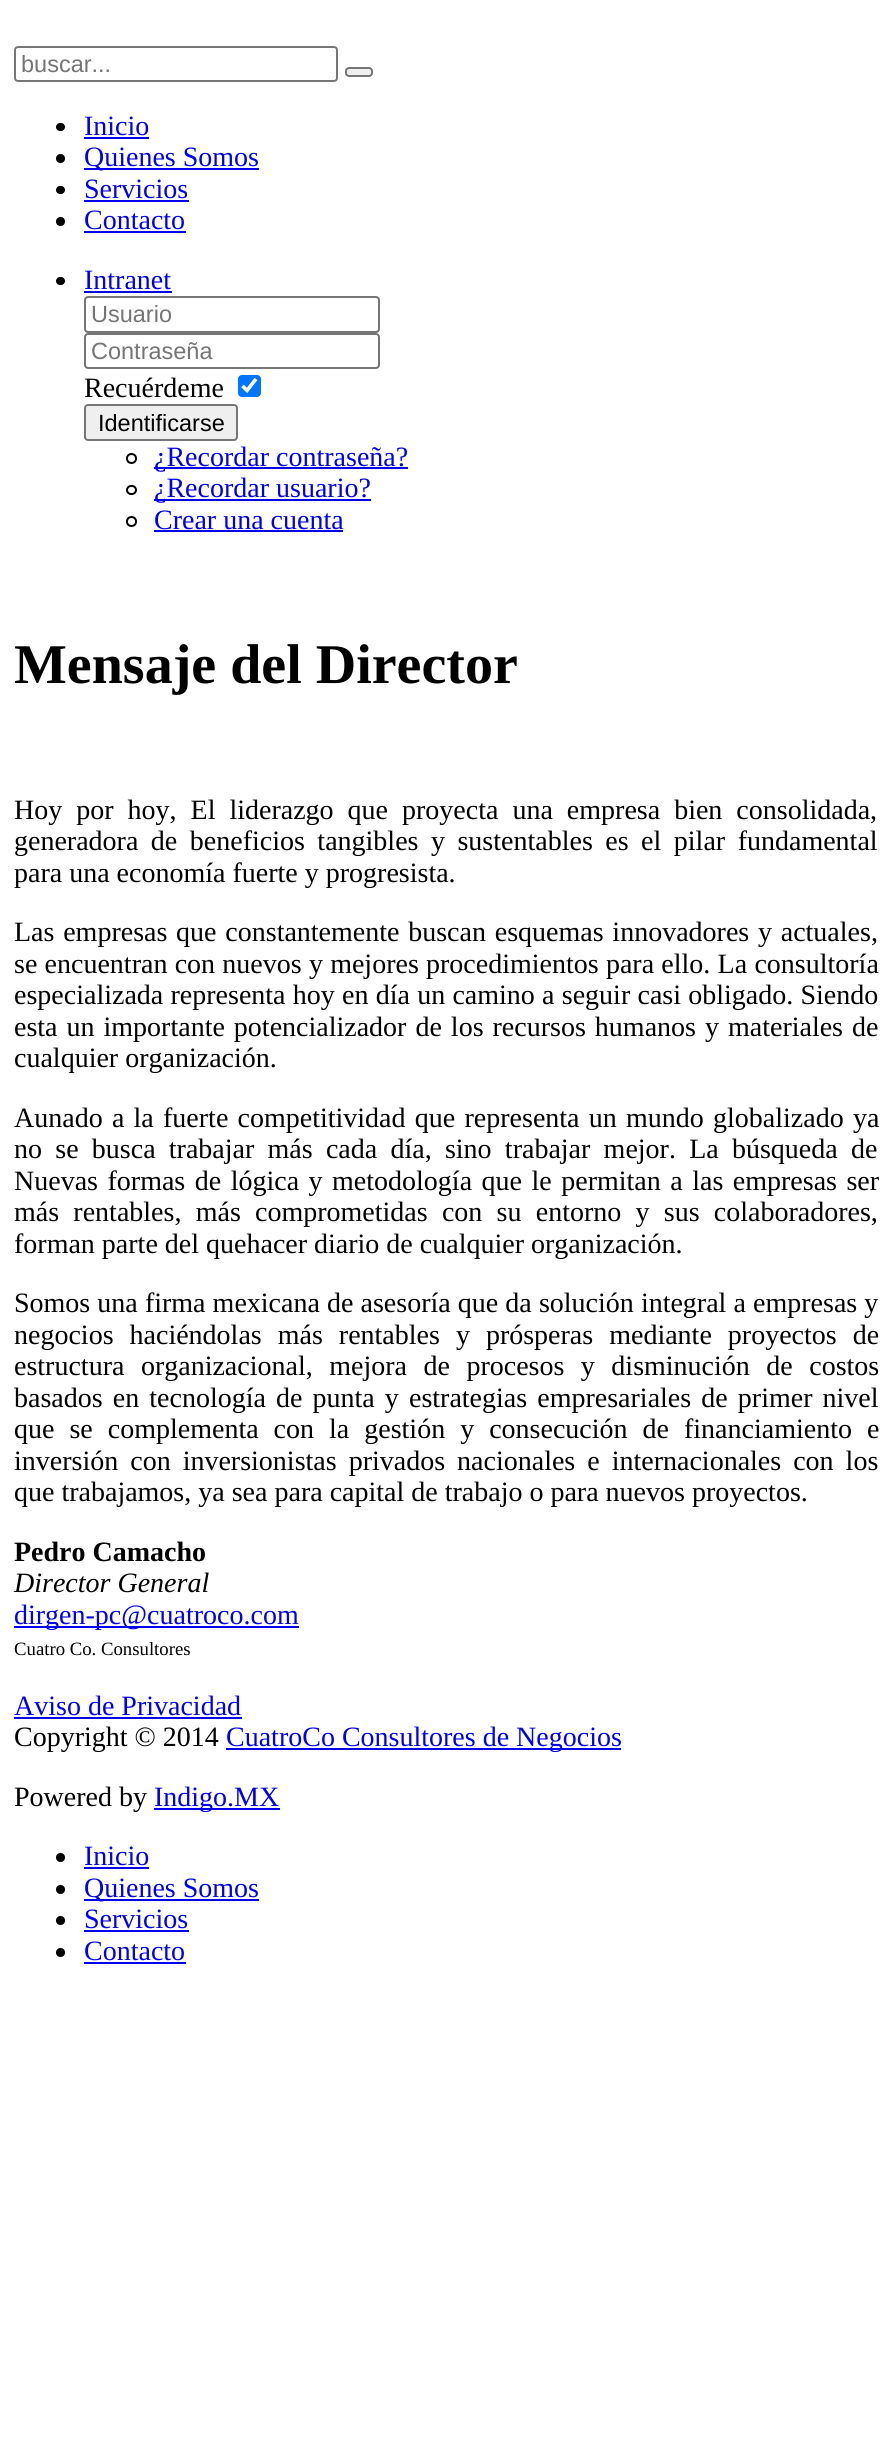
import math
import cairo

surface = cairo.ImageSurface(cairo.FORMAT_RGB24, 892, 2446)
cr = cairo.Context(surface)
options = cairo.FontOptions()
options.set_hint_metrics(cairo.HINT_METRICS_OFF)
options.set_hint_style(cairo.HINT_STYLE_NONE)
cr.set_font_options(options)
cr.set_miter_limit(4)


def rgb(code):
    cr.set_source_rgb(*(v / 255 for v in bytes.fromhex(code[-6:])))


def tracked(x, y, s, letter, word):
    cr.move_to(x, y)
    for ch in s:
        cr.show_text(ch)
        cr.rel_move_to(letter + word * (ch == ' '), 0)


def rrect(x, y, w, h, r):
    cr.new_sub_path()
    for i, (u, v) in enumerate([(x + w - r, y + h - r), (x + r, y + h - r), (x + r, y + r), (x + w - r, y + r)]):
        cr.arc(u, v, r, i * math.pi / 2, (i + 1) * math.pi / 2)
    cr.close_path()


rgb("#ffffff")
cr.paint()
rrect(15, 47, 322, 34, 3)
rgb("#767676")
cr.stroke()
rgb("#efefef")
rrect(346, 68, 26, 8, 3)
cr.fill_preserve()
rgb("#767676")
cr.stroke()
rgb("#000000")
rrect(56, 123, 9, 8, 4)
cr.fill()
rgb("#0000ee")
cr.rectangle(84, 137, 65, 2)
cr.fill()
rgb("#000000")
cr.arc(60.5, 158.5, 4.5, 0, 2 * math.pi)
cr.fill()
rgb("#0000ee")
cr.rectangle(84, 168, 175, 2)
cr.fill()
rgb("#000000")
rrect(56, 186, 9, 8, 4)
cr.fill()
rgb("#0000ee")
cr.rectangle(84, 200, 105, 2)
cr.fill()
rgb("#000000")
cr.arc(60.5, 221.5, 4.5, 0, 2 * math.pi)
cr.fill()
rgb("#0000ee")
cr.rectangle(84, 231, 102, 2)
cr.fill()
rgb("#000000")
rrect(56, 277, 9, 8, 4)
cr.fill()
rgb("#0000ee")
cr.rectangle(84, 291, 88, 2)
cr.fill()
rrect(85, 297, 294, 35, 3)
rgb("#767676")
cr.stroke()
rrect(85, 334, 294, 34, 3)
cr.stroke()
rgb("#0075ff")
rrect(238, 375, 23, 22, 4)
cr.fill()
cr.new_path()
cr.move_to(242.5, 386)
cr.line_to(247, 390.5)
cr.line_to(256, 379)
rgb("#ffffff")
cr.set_line_width(3.6)
cr.stroke()
rgb("#efefef")
rrect(85, 405, 152, 35, 3)
cr.fill_preserve()
rgb("#767676")
cr.set_line_width(2)
cr.stroke()
cr.arc(131.5, 458.5, 4.5, 0, 2 * math.pi)
rgb("#000000")
cr.stroke()
rgb("#0000ee")
cr.rectangle(154, 467, 254, 2)
cr.fill()
rrect(127, 486, 9, 8, 4)
rgb("#000000")
cr.stroke()
rgb("#0000ee")
cr.rectangle(154, 499, 217, 2)
cr.fill()
cr.arc(131.5, 521.5, 4.5, 0, 2 * math.pi)
rgb("#000000")
cr.stroke()
for x, y, w, h, color in [
    (154, 530, 189, 2, "#0000ee"),
    (14, 1626, 285, 2, "#0000ee"),
    (14, 1717, 228, 2, "#0000ee"),
    (226, 1748, 395, 2, "#0000ee"),
    (154, 1808, 126, 2, "#0000ee"),
]:
    rgb(color)
    cr.rectangle(x, y, w, h)
    cr.fill()
rgb("#000000")
cr.arc(60.5, 1857.5, 4.5, 0, 2 * math.pi)
cr.fill()
rgb("#0000ee")
cr.rectangle(84, 1867, 65, 2)
cr.fill()
rgb("#000000")
cr.arc(60.5, 1889.5, 4.5, 0, 2 * math.pi)
cr.fill()
rgb("#0000ee")
cr.rectangle(84, 1899, 175, 2)
cr.fill()
rgb("#000000")
cr.arc(60.5, 1920.5, 4.5, 0, 2 * math.pi)
cr.fill()
rgb("#0000ee")
cr.rectangle(84, 1930, 105, 2)
cr.fill()
rgb("#000000")
cr.arc(60.5, 1952.5, 4.5, 0, 2 * math.pi)
cr.fill()
rgb("#0000ee")
cr.rectangle(84, 1962, 102, 2)
cr.fill()
cr.select_font_face("Liberation Sans")
cr.set_font_size(23.5)
rgb("#757575")
cr.move_to(21, 72)
cr.show_text("buscar...")
cr.select_font_face("Liberation Serif")
cr.set_font_size(28)
rgb("#0000ee")
for x, y, s in [
    (84, 135, "Inicio"),
    (84, 166, "Quienes Somos"),
    (84, 198, "Servicios"),
    (84, 229, "Contacto"),
    (84, 289, "Intranet"),
]:
    cr.move_to(x, y)
    cr.show_text(s)
cr.select_font_face("Liberation Sans")
cr.set_font_size(23.5)
rgb("#757575")
cr.move_to(91, 322)
cr.show_text("Usuario")
cr.move_to(91, 359)
cr.show_text("Contraseña")
cr.select_font_face("Liberation Serif")
cr.set_font_size(28)
rgb("#000000")
cr.move_to(84, 397)
cr.show_text("Recuérdeme")
cr.select_font_face("Liberation Sans")
cr.set_font_size(23.5)
cr.move_to(98, 431)
cr.show_text("Identificarse")
cr.select_font_face("Liberation Serif")
cr.set_font_size(28)
rgb("#0000ee")
for x, y, s in [
    (154, 466, "¿Recordar contraseña?"),
    (154, 497, "¿Recordar usuario?"),
    (154, 529, "Crear una cuenta"),
]:
    cr.move_to(x, y)
    cr.show_text(s)
cr.select_font_face("Liberation Serif", cairo.FONT_SLANT_NORMAL, cairo.FONT_WEIGHT_BOLD)
cr.set_font_size(56)
rgb("#000000")
cr.move_to(14, 683)
cr.show_text("Mensaje del Director")
cr.select_font_face("Liberation Serif")
cr.set_font_size(28)
tracked(14, 819, "Hoy por hoy, El liderazgo que proyecta una empresa bien consolidada,", 0, 7)
tracked(14, 850, "generadora de beneficios tangibles y sustentables es el pilar fundamental", 0, 5.5)
cr.move_to(14, 882)
cr.show_text("para una economía fuerte y progresista.")
tracked(14, 941, "Las empresas que constantemente buscan esquemas innovadores y actuales,", 0, 1.75)
tracked(14, 973, "se encuentran con nuevos y mejores procedimientos para ello. La consultoría", 0, 0.25)
tracked(14, 1004, "especializada representa hoy en día un camino a seguir casi obligado. Siendo", 0, 0.25)
tracked(14, 1036, "esta un importante potencializador de los recursos humanos y materiales de", 0, 2)
cr.move_to(14, 1067)
cr.show_text("cualquier organización.")
tracked(14, 1127, "Aunado a la fuerte competitividad que representa un mundo globalizado ya", 0, 2.25)
tracked(14, 1158, "no se busca trabajar más cada día, sino trabajar mejor. La búsqueda de", 0, 6.25)
tracked(14, 1190, "Nuevas formas de lógica y metodología que le permitan a las empresas ser", 0, 2.5)
tracked(14, 1221, "más rentables, más comprometidas con su entorno y sus colaboradores,", 0, 7.25)
cr.move_to(14, 1253)
cr.show_text("forman parte del quehacer diario de cualquier organización.")
tracked(14, 1312, "Somos una firma mexicana de asesoría que da solución integral a empresas y", 0, 0.1)
tracked(14, 1344, "negocios haciéndolas más rentables y prósperas mediante proyectos de", 0, 9)
tracked(14, 1375, "estructura organizacional, mejora de procesos y disminución de costos", 0, 9.5)
tracked(14, 1407, "basados en tecnología de punta y estrategias empresariales de primer nivel", 0, 3.1)
tracked(14, 1438, "que se complementa con la gestión y consecución de financiamiento e", 0, 8)
tracked(14, 1470, "inversión con inversionistas privados nacionales e internacionales con los", 0, 5)
cr.move_to(14, 1501)
cr.show_text("que trabajamos, ya sea para capital de trabajo o para nuevos proyectos.")
cr.select_font_face("Liberation Serif", cairo.FONT_SLANT_NORMAL, cairo.FONT_WEIGHT_BOLD)
cr.move_to(14, 1561)
cr.show_text("Pedro Camacho")
cr.select_font_face("Liberation Serif", cairo.FONT_SLANT_ITALIC)
cr.move_to(14, 1592)
cr.show_text("Director General")
cr.select_font_face("Liberation Serif")
rgb("#0000ee")
cr.move_to(14, 1624)
cr.show_text("dirgen-pc@cuatroco.com")
cr.set_font_size(18.75)
rgb("#000000")
cr.move_to(14, 1655)
cr.show_text("Cuatro Co. Consultores")
cr.set_font_size(28)
rgb("#0000ee")
cr.move_to(14, 1715)
cr.show_text("Aviso de Privacidad")
rgb("#000000")
cr.move_to(14, 1746)
cr.show_text("Copyright © 2014")
rgb("#0000ee")
cr.move_to(226, 1746)
cr.show_text("CuatroCo Consultores de Negocios")
rgb("#000000")
cr.move_to(14, 1806)
cr.show_text("Powered by")
rgb("#0000ee")
for x, y, s in [
    (154, 1806, "Indigo.MX"),
    (84, 1865, "Inicio"),
    (84, 1897, "Quienes Somos"),
    (84, 1928, "Servicios"),
    (84, 1960, "Contacto"),
]:
    cr.move_to(x, y)
    cr.show_text(s)
surface.write_to_png("page.png")
